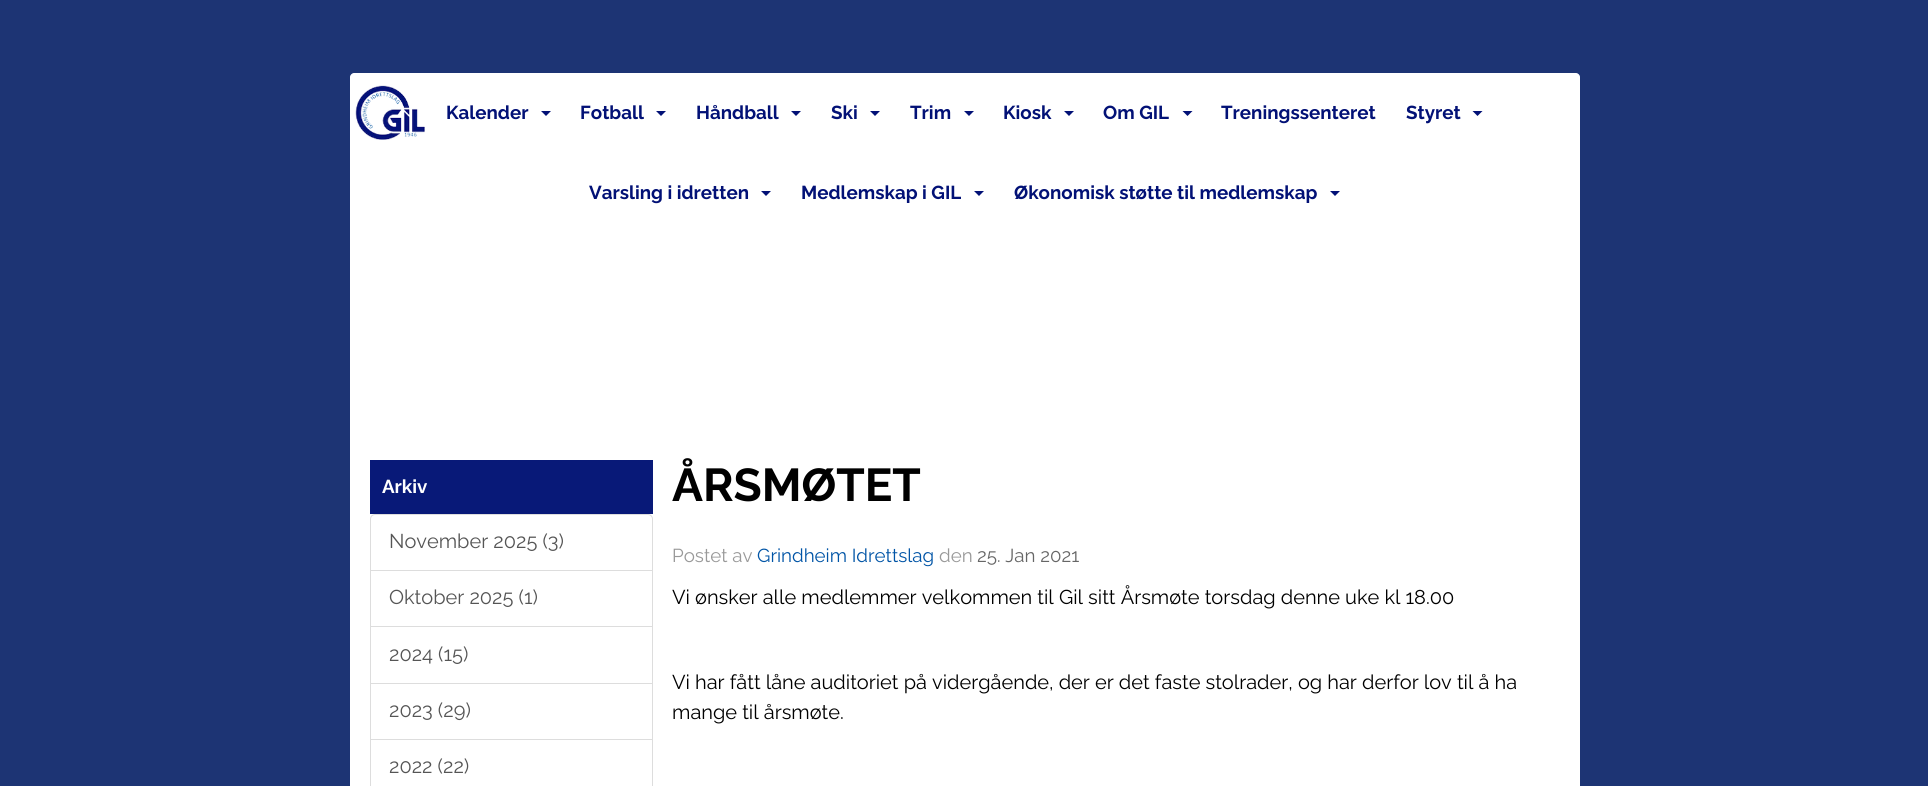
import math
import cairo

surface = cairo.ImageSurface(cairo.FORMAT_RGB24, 1928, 786)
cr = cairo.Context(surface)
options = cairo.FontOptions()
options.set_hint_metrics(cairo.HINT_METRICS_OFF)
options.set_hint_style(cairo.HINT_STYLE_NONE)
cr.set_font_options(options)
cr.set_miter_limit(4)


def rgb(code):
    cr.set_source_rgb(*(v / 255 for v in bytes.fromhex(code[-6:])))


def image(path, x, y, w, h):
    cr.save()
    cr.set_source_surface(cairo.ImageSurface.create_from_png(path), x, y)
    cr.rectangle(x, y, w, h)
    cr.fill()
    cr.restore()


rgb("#1d3474")
cr.paint()
rgb("#ffffff")
cr.new_path()
cr.move_to(354, 73)
cr.line_to(1576, 73)
cr.curve_to(1578, 73, 1580, 75, 1580, 77)
cr.line_to(1580, 233)
cr.line_to(350, 233)
cr.line_to(350, 77)
cr.curve_to(350, 75, 352, 73, 354, 73)
cr.close_path()
cr.fill()
image("img/1.png", 355, 85, 70, 55)
rgb("#021176")
cr.new_path()
cr.move_to(541, 111)
cr.line_to(551, 111)
cr.line_to(546, 116)
cr.close_path()
cr.fill()
cr.new_path()
cr.move_to(656, 111)
cr.line_to(666, 111)
cr.line_to(661, 116)
cr.close_path()
cr.fill()
cr.new_path()
cr.move_to(791, 111)
cr.line_to(801, 111)
cr.line_to(796, 116)
cr.close_path()
cr.fill()
cr.new_path()
cr.move_to(870, 111)
cr.line_to(880, 111)
cr.line_to(875, 116)
cr.close_path()
cr.fill()
cr.new_path()
cr.move_to(964, 111)
cr.line_to(974, 111)
cr.line_to(969, 116)
cr.close_path()
cr.fill()
cr.new_path()
cr.move_to(1064, 111)
cr.line_to(1074, 111)
cr.line_to(1069, 116)
cr.close_path()
cr.fill()
cr.new_path()
cr.move_to(1182.5, 111)
cr.line_to(1192.5, 111)
cr.line_to(1187.5, 116)
cr.close_path()
cr.fill()
cr.new_path()
cr.move_to(1472.5, 111)
cr.line_to(1482.5, 111)
cr.line_to(1477.5, 116)
cr.close_path()
cr.fill()
cr.new_path()
cr.move_to(761, 191)
cr.line_to(771, 191)
cr.line_to(766, 196)
cr.close_path()
cr.fill()
cr.new_path()
cr.move_to(974, 191)
cr.line_to(984, 191)
cr.line_to(979, 196)
cr.close_path()
cr.fill()
cr.new_path()
cr.move_to(1330, 191)
cr.line_to(1340, 191)
cr.line_to(1335, 196)
cr.close_path()
cr.fill()
rgb("#ffffff")
cr.rectangle(350, 233, 1230, 553)
cr.fill()
rgb("#081978")
cr.rectangle(370, 460, 283, 54)
cr.fill()
cr.new_path()
cr.move_to(375, 514.5)
cr.line_to(648, 514.5)
cr.curve_to(650.5, 514.5, 652.5, 516.5, 652.5, 519)
cr.line_to(652.5, 570.5)
cr.line_to(370.5, 570.5)
cr.line_to(370.5, 519)
cr.curve_to(370.5, 516.5, 372.5, 514.5, 375, 514.5)
cr.close_path()
rgb("#dddddd")
cr.set_line_width(1)
cr.stroke()
cr.rectangle(370.5, 570.5, 282, 57)
cr.stroke()
rgb("#ffffff")
cr.rectangle(371, 627, 281, 1)
cr.fill()
cr.rectangle(370.5, 626.5, 282, 57)
rgb("#dddddd")
cr.stroke()
cr.rectangle(370.5, 683.5, 282, 56)
cr.stroke()
cr.rectangle(370.5, 739.5, 282, 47)
cr.stroke()
cr.select_font_face("Raleway", cairo.FONT_SLANT_NORMAL, cairo.FONT_WEIGHT_BOLD)
cr.set_font_size(18.75)
rgb("#021176")
for x, y, s in [
    (446, 119, "Kalender"),
    (580, 119, "Fotball"),
    (696, 119, "Håndball"),
    (831, 119, "Ski"),
    (910, 119, "Trim"),
    (1003, 119, "Kiosk"),
    (1103, 119, "Om GIL"),
    (1221, 119, "Treningssenteret"),
    (1406, 119, "Styret"),
    (589, 199, "Varsling i idretten"),
    (801, 199, "Medlemskap i GIL"),
    (1014, 199, "Økonomisk støtte til medlemskap"),
]:
    cr.move_to(x, y)
    cr.show_text(s)
rgb("#ffffff")
cr.move_to(382, 493)
cr.show_text("Arkiv")
cr.select_font_face("Raleway")
cr.set_font_size(20)
rgb("#555555")
for x, y, s in [
    (389, 548, "November 2025 (3)"),
    (389, 604, "Oktober 2025 (1)"),
    (389, 661, "2024 (15)"),
    (389, 717, "2023 (29)"),
    (389, 773, "2022 (22)"),
]:
    cr.move_to(x, y)
    cr.show_text(s)
cr.select_font_face("Raleway", cairo.FONT_SLANT_NORMAL, cairo.FONT_WEIGHT_BOLD)
cr.set_font_size(46)
rgb("#000000")
cr.move_to(672, 501)
cr.show_text("ÅRSMØTET")
cr.select_font_face("Raleway")
cr.set_font_size(18.75)
rgb("#999999")
cr.move_to(672, 562)
cr.show_text("Postet av")
rgb("#0054a6")
cr.move_to(757, 562)
cr.show_text("Grindheim Idrettslag")
rgb("#999999")
cr.move_to(939, 562)
cr.show_text("den")
rgb("#666666")
cr.move_to(977, 562)
cr.show_text("25. Jan 2021")
cr.set_font_size(20)
rgb("#000000")
for x, y, s in [
    (672, 604, "Vi ønsker alle medlemmer velkommen til Gil sitt Årsmøte torsdag denne uke kl 18.00"),
    (672, 689, "Vi har fått låne auditoriet på vidergående, der er det faste stolrader, og har derfor lov til å ha"),
    (672, 719, "mange til årsmøte."),
]:
    cr.move_to(x, y)
    cr.show_text(s)
surface.write_to_png("page.png")
